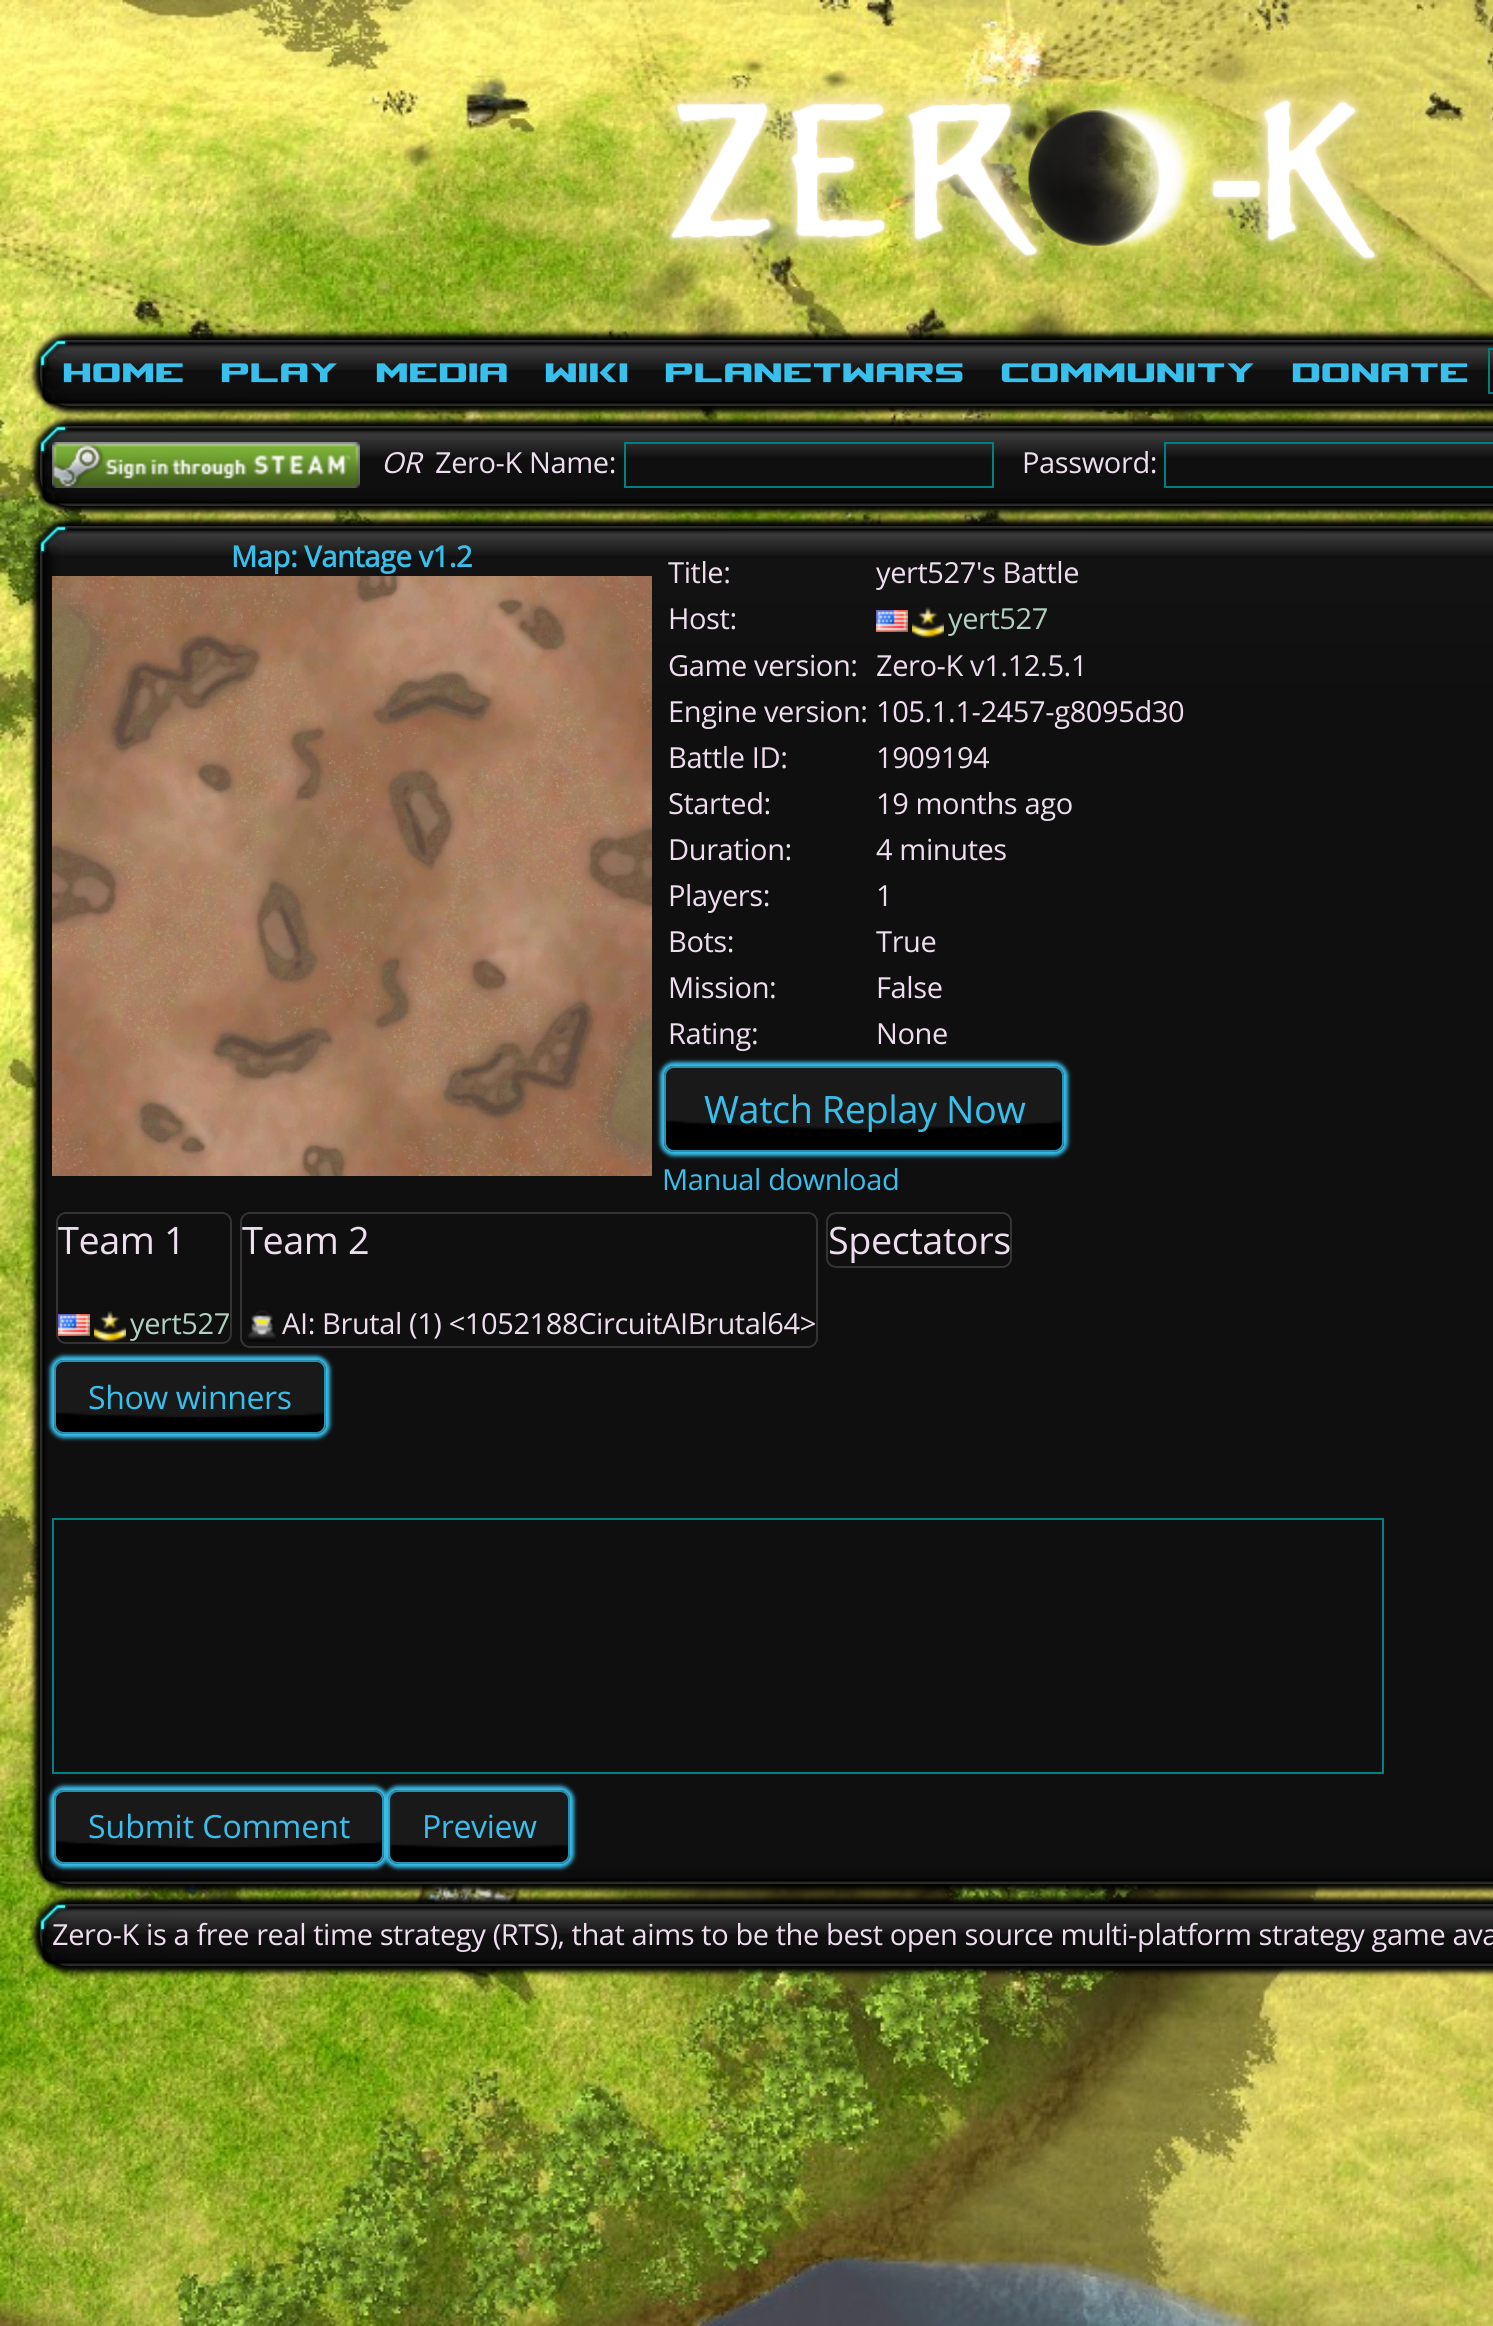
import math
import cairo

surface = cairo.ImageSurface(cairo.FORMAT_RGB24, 1493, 2326)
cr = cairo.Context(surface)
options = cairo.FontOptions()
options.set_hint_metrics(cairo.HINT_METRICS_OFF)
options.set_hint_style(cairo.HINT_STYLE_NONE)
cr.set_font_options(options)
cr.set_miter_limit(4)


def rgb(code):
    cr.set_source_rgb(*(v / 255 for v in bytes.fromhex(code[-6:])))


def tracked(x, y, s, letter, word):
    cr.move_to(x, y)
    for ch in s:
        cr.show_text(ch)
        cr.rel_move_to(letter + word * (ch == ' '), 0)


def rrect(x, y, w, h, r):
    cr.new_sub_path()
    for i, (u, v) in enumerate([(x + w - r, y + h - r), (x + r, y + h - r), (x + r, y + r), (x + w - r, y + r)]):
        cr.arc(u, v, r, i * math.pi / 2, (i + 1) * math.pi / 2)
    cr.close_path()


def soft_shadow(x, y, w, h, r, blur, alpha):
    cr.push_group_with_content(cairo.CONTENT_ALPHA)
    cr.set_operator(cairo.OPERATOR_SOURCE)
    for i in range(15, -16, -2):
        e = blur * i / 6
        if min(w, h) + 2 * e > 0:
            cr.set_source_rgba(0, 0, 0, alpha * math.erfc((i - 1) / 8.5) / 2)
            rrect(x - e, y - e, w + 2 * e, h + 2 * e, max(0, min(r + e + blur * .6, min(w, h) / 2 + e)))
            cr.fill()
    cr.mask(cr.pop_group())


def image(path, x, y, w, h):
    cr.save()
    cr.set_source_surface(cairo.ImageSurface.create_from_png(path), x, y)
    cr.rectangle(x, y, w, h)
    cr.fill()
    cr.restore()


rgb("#ffffff")
cr.paint()
image("img/1.png", 0, 0, 1493, 2326)
image("img/2.png", 654, 73, 741, 204)
rgb("#000000")
soft_shadow(34, 334, 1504, 78, 36, 3, 1)
rgb("#333333")
rrect(40, 340, 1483, 66, 30)
cr.fill()
image("img/3.png", 40, 340, 1453, 66)
cr.rectangle(1489, 349, 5, 44)
rgb("#008080")
cr.stroke()
rgb("#000000")
soft_shadow(34, 420, 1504, 92, 36, 3, 1)
rgb("#333333")
rrect(40, 426, 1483, 80, 30)
cr.fill()
image("img/4.png", 40, 426, 1453, 80)
image("img/5.png", 52, 442, 308, 46)
cr.rectangle(625, 443, 368, 44)
rgb("#008080")
cr.stroke()
cr.rectangle(1165, 443, 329, 44)
cr.stroke()
rgb("#000000")
soft_shadow(34, 520, 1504, 1370, 36, 3, 1)
rgb("#333333")
rrect(40, 526, 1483, 1358, 30)
cr.fill()
image("img/6.png", 40, 526, 1453, 1358)
image("img/7.png", 52, 576, 600, 600)
image("img/8.png", 876, 610, 32, 22)
image("img/9.png", 912, 607, 32, 31)
rgb("#38bfec")
soft_shadow(660, 1062, 408, 94, 14, 2, 1)
image("img/10.png", 664, 1066, 400, 86)
rrect(665, 1067, 398, 84, 9)
rgb("#2a8eaf")
cr.stroke()
rrect(57, 1213, 174, 130, 9)
rgb("#333333")
cr.stroke()
image("img/8.png", 58, 1314, 32, 22)
image("img/11.png", 94, 1311, 32, 31)
rrect(241, 1213, 576, 134, 9)
cr.stroke()
image("img/12.png", 247, 1310, 29, 32)
rrect(827, 1213, 184, 54, 9)
cr.stroke()
rgb("#38bfec")
soft_shadow(50, 1356, 280, 82, 14, 2, 1)
image("img/13.png", 54, 1360, 272, 74)
rrect(55, 1361, 270, 72, 9)
rgb("#2a8eaf")
cr.stroke()
cr.rectangle(53, 1519, 1330, 254)
rgb("#008080")
cr.stroke()
rgb("#38bfec")
soft_shadow(384, 1786, 190, 82, 14, 2, 1)
image("img/15.png", 388, 1790, 182, 74)
rrect(389, 1791, 180, 72, 9)
rgb("#2a8eaf")
cr.stroke()
rgb("#38bfec")
soft_shadow(50, 1786, 338, 82, 14, 2, 1)
image("img/14.png", 54, 1790, 330, 74)
rrect(55, 1791, 328, 72, 9)
rgb("#2a8eaf")
cr.stroke()
rgb("#000000")
soft_shadow(34, 1898, 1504, 74, 36, 3, 1)
rgb("#333333")
rrect(40, 1904, 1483, 62, 30)
cr.fill()
image("img/16.png", 40, 1904, 1453, 62)
cr.select_font_face("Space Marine")
cr.set_font_size(30)
rgb("#38bfec")
for x, y, s in [
    (62, 384, "Home"),
    (220, 384, "Play"),
    (375, 384, "Media"),
    (544, 384, "Wiki"),
    (664, 384, "PlanetWars"),
    (1000, 384, "Community"),
    (1291, 384, "Donate"),
]:
    tracked(x, y, s, -0.4, 0)
cr.select_font_face("Open Sans", cairo.FONT_SLANT_ITALIC)
cr.set_font_size(29)
rgb("#eeddee")
tracked(381, 473, "OR", -0.4, 0)
cr.select_font_face("Open Sans")
tracked(435, 473, "Zero-K Name:", -0.4, 0)
tracked(1022, 473, "Password:", -0.4, 0)
cr.select_font_face("Open Sans", cairo.FONT_SLANT_NORMAL, cairo.FONT_WEIGHT_BOLD)
rgb("#38bfec")
tracked(231, 567, "Map: Vantage v1.2", -0.4, 0)
cr.select_font_face("Open Sans")
rgb("#eeddee")
for x, y, s in [
    (668, 583, "Title:"),
    (876, 583, "yert527's Battle"),
    (668, 629, "Host:"),
]:
    tracked(x, y, s, -0.4, 0)
rgb("#b0d0c0")
tracked(948, 629, "yert527", -0.4, 0)
rgb("#eeddee")
for x, y, s in [
    (668, 676, "Game version:"),
    (876, 676, "Zero-K v1.12.5.1"),
    (668, 722, "Engine version:"),
    (876, 722, "105.1.1-2457-g8095d30"),
    (668, 768, "Battle ID:"),
    (876, 768, "1909194"),
    (668, 814, "Started:"),
    (876, 814, "19 months ago"),
    (668, 860, "Duration:"),
    (876, 860, "4 minutes"),
    (668, 906, "Players:"),
    (876, 906, "1"),
    (668, 952, "Bots:"),
    (876, 952, "True"),
    (668, 998, "Mission:"),
    (876, 998, "False"),
    (668, 1044, "Rating:"),
    (876, 1044, "None"),
]:
    tracked(x, y, s, -0.4, 0)
cr.set_font_size(37.75)
rgb("#38bfec")
tracked(704, 1123, "Watch Replay Now", -0.4, 0)
cr.set_font_size(29)
tracked(662, 1190, "Manual download", -0.4, 0)
cr.set_font_size(37.75)
rgb("#eeddee")
tracked(58, 1254, "Team 1", -0.4, 0)
cr.set_font_size(29)
rgb("#b0d0c0")
tracked(130, 1334, "yert527", -0.4, 0)
cr.set_font_size(37.75)
rgb("#eeddee")
tracked(242, 1254, "Team 2", -0.4, 0)
cr.set_font_size(29)
tracked(282, 1334, "AI: Brutal (1) <1052188CircuitAIBrutal64>", -0.4, 0)
cr.set_font_size(37.75)
tracked(828, 1254, "Spectators", -0.4, 0)
cr.set_font_size(32)
rgb("#38bfec")
tracked(88, 1409, "Show winners", -0.4, 0)
cr.move_to(88, 1838)
cr.show_text("Submit Comment")
tracked(422, 1838, "Preview", -0.4, 0)
cr.set_font_size(29)
rgb("#eeddee")
tracked(52, 1945, "Zero-K is a free real time strategy (RTS), that aims to be the best open source multi-platform strategy game ava", -0.4, 0)
surface.write_to_png("page.png")
